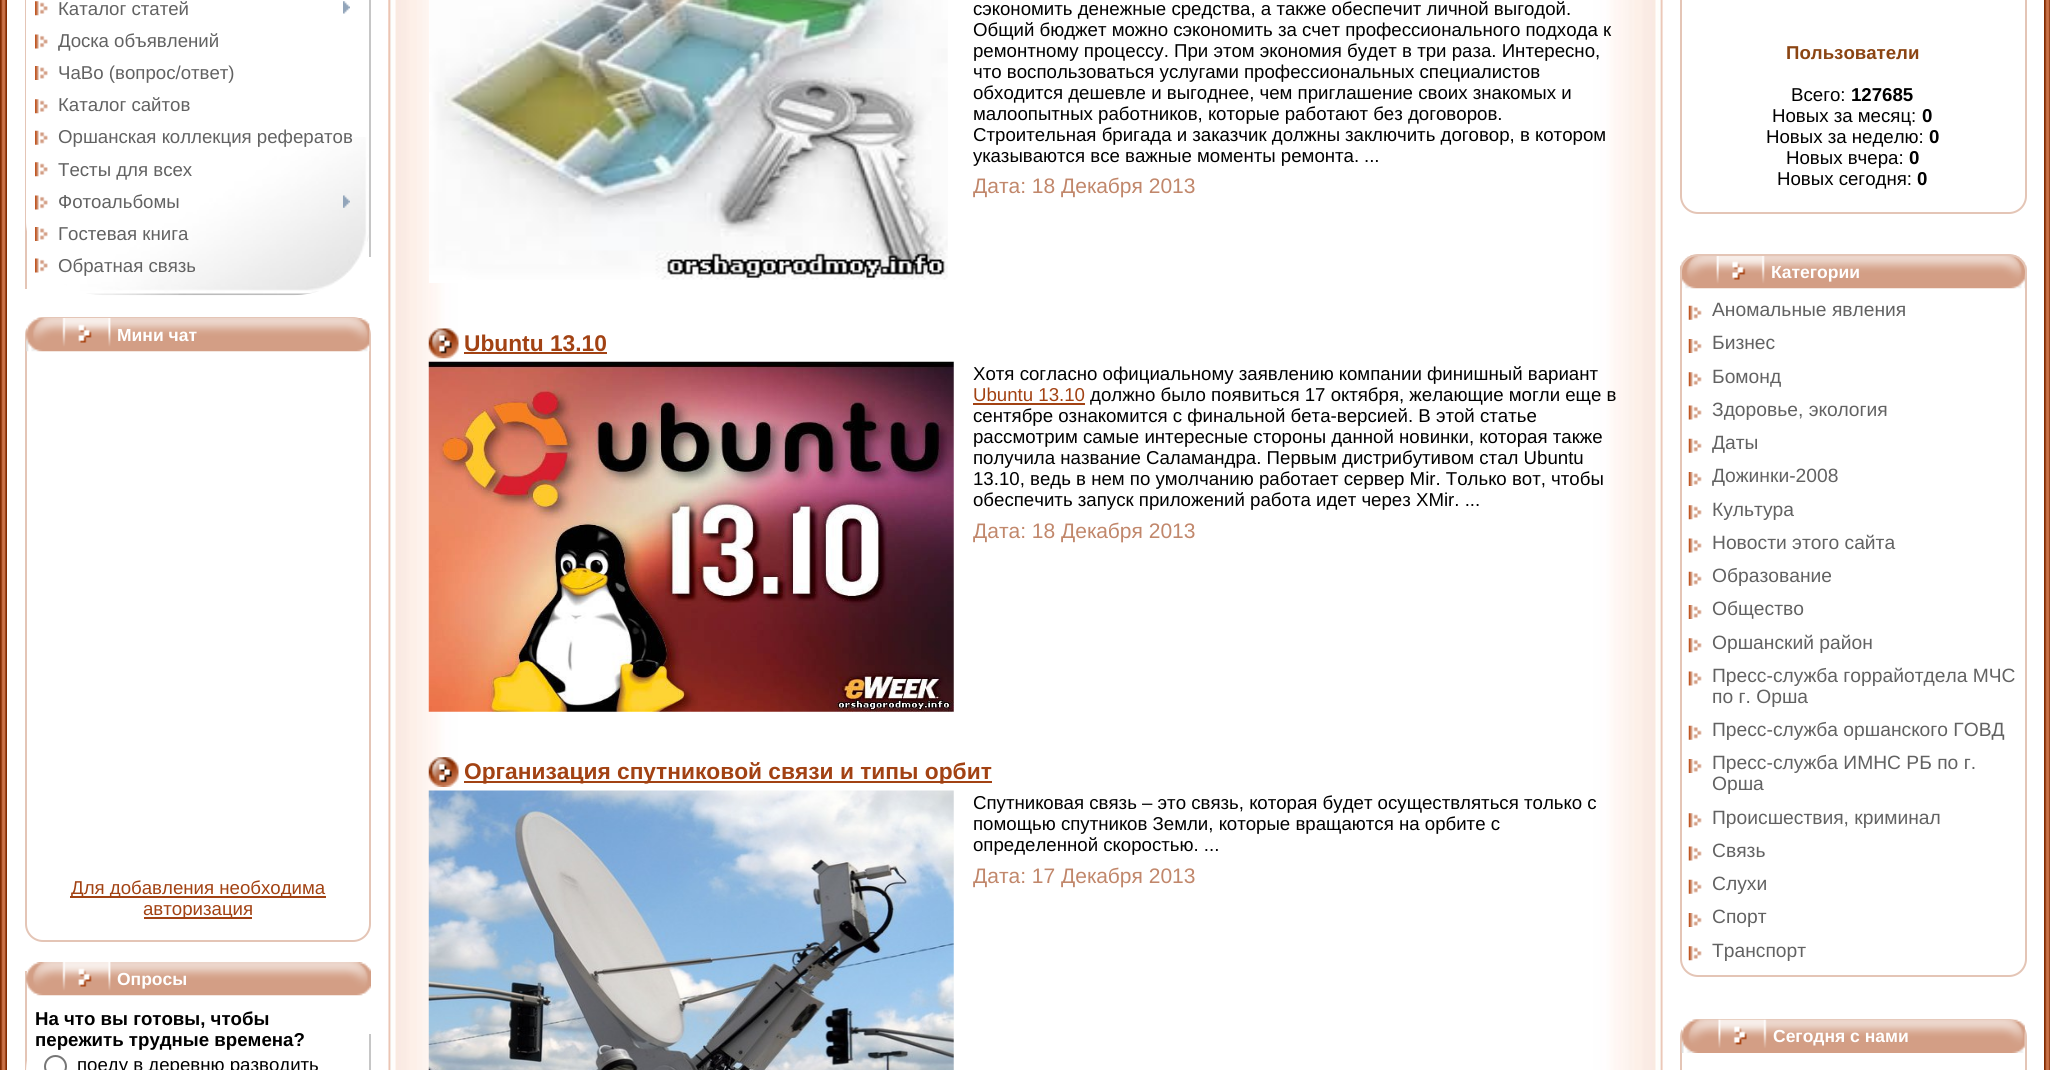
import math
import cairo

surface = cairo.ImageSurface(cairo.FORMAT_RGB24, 2050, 1070)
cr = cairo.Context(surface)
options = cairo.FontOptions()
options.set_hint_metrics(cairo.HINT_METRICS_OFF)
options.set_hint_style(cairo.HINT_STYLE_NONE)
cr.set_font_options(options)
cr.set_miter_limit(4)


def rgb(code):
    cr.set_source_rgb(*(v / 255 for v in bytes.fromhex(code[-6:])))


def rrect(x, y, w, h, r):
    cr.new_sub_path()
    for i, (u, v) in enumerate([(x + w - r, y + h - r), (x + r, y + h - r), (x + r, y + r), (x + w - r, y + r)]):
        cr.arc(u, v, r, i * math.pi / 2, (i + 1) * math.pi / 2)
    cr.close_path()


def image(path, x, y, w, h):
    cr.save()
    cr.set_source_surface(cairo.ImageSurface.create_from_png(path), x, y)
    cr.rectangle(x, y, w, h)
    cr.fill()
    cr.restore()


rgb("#ffffff")
cr.paint()
rgb("#822b01")
cr.rectangle(0, 0, 7, 1070)
cr.fill()
image("img/1.png", 1, 0, 5, 1070)
rgb("#e4c5b6")
cr.rectangle(25, 0, 2, 289)
cr.fill()
rgb("#ffffff")
rrect(26, -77, 345, 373, 77)
cr.fill()
image("img/2.png", 26, 137, 343, 159)
rgb("#c6c6c6")
cr.rectangle(369, 0, 2, 257)
cr.fill()
image("img/3.png", 35, 1, 13, 15)
image("img/4.png", 343, 1, 7, 13)
image("img/5.png", 35, 34, 13, 15)
image("img/6.png", 35, 66, 13, 14)
image("img/3.png", 35, 99, 13, 15)
image("img/7.png", 35, 130, 13, 15)
image("img/3.png", 35, 162, 13, 15)
image("img/5.png", 35, 195, 13, 15)
image("img/8.png", 343, 195, 7, 13)
image("img/6.png", 35, 227, 13, 14)
image("img/5.png", 35, 258, 13, 15)
rrect(26, 318, 344, 623, 17)
rgb("#e4c5b6")
cr.stroke()
image("img/9.png", 26, 318, 344, 34)
for x, y, w, h, color in [
    (70, 896, 256, 2, "#a24213"),
    (144, 917, 108, 2, "#a24213"),
    (25, 971, 2, 99, "#e4c5b6"),
]:
    rgb(color)
    cr.rectangle(x, y, w, h)
    cr.fill()
image("img/10.png", 26, 962, 345, 34)
rgb("#ffffff")
rrect(26, 996, 345, 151, 77)
cr.fill()
rgb("#c6c6c6")
cr.rectangle(369, 1034, 2, 36)
cr.fill()
cr.arc(55.5, 1066.5, 10.5, 0, 2 * math.pi)
rgb("#767676")
cr.stroke()
image("img/11.png", 388, 0, 1, 439)
image("img/12.png", 388, 0, 1275, 1070)
image("img/13.png", 429, 0, 519, 283)
image("img/14.png", 428, 328, 31, 31)
rgb("#a24213")
cr.rectangle(464, 352, 143, 2)
cr.fill()
image("img/15.png", 428, 361, 526, 351)
cr.rectangle(973, 403, 112, 2)
cr.fill()
image("img/16.png", 428, 757, 31, 30)
cr.rectangle(464, 781, 528, 2)
cr.fill()
image("img/17.png", 428, 790, 526, 280)
rrect(1681, -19, 345, 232, 17)
rgb("#e4c5b6")
cr.stroke()
image("img/18.png", 1680, 255, 347, 34)
rrect(1681, 255, 345, 721, 17)
cr.stroke()
image("img/19.png", 1688, 305, 14, 15)
image("img/20.png", 1688, 339, 14, 14)
image("img/21.png", 1688, 372, 14, 15)
image("img/22.png", 1688, 405, 14, 15)
image("img/19.png", 1688, 438, 14, 15)
image("img/20.png", 1688, 472, 14, 14)
image("img/21.png", 1688, 505, 14, 15)
image("img/22.png", 1688, 538, 14, 15)
image("img/19.png", 1688, 571, 14, 15)
image("img/20.png", 1688, 605, 14, 14)
image("img/21.png", 1688, 638, 14, 15)
image("img/22.png", 1688, 671, 14, 15)
image("img/19.png", 1688, 725, 14, 15)
image("img/20.png", 1688, 759, 14, 14)
image("img/21.png", 1688, 813, 14, 15)
image("img/22.png", 1688, 846, 14, 15)
image("img/19.png", 1688, 879, 14, 15)
image("img/20.png", 1688, 913, 14, 14)
image("img/21.png", 1688, 946, 14, 15)
rrect(1681, 1020, 345, 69, 17)
cr.stroke()
image("img/23.png", 1681, 1019, 344, 34)
rgb("#822b01")
cr.rectangle(2044, 0, 1, 1070)
cr.fill()
image("img/1.png", 2045, 0, 5, 1070)
cr.select_font_face("Liberation Sans")
cr.set_font_size(18.65)
rgb("#626262")
for x, y, s in [
    (58, 15, "Каталог статей"),
    (58, 47, "Доска объявлений"),
    (58, 79, "ЧаВо (вопрос/ответ)"),
    (58, 111, "Каталог сайтов"),
    (58, 143, "Оршанская коллекция рефератов"),
    (58, 176, "Тесты для всех"),
    (58, 208, "Фотоальбомы"),
    (58, 240, "Гостевая книга"),
    (58, 272, "Обратная связь"),
]:
    cr.move_to(x, y)
    cr.show_text(s)
cr.select_font_face("Liberation Sans", cairo.FONT_SLANT_NORMAL, cairo.FONT_WEIGHT_BOLD)
cr.set_font_size(17.5)
rgb("#ffffff")
cr.move_to(117, 341)
cr.show_text("Мини чат")
cr.select_font_face("Liberation Sans")
cr.set_font_size(18.65)
rgb("#a24213")
cr.move_to(71, 894)
cr.show_text("Для добавления необходима")
cr.move_to(143, 915)
cr.show_text("авторизация")
cr.select_font_face("Liberation Sans", cairo.FONT_SLANT_NORMAL, cairo.FONT_WEIGHT_BOLD)
cr.set_font_size(17.5)
rgb("#ffffff")
cr.move_to(117, 985)
cr.show_text("Опросы")
cr.set_font_size(18.65)
rgb("#000000")
cr.move_to(35, 1025)
cr.show_text("На что вы готовы, чтобы")
cr.move_to(35, 1046)
cr.show_text("пережить трудные времена?")
cr.select_font_face("Liberation Sans")
for x, y, s in [
    (77, 1071, "поеду в деревню разводить"),
    (973, 15, "сэкономить денежные средства, а также обеспечит личной выгодой."),
    (973, 36, "Общий бюджет можно сэкономить за счет профессионального подхода к"),
    (973, 57, "ремонтному процессу. При этом экономия будет в три раза. Интересно,"),
    (973, 78, "что воспользоваться услугами профессиональных специалистов"),
    (973, 99, "обходится дешевле и выгоднее, чем приглашение своих знакомых и"),
    (973, 120, "малоопытных работников, которые работают без договоров."),
    (973, 141, "Строительная бригада и заказчик должны"),
    (1345, 141, "заключить договор, в котором"),
    (973, 162, "указываются все важные моменты ремонта."),
    (1364, 162, "..."),
]:
    cr.move_to(x, y)
    cr.show_text(s)
cr.set_font_size(21)
rgb("#c1876b")
cr.move_to(973, 193)
cr.show_text("Дата: 18 Декабря 2013")
cr.select_font_face("Liberation Sans", cairo.FONT_SLANT_NORMAL, cairo.FONT_WEIGHT_BOLD)
cr.set_font_size(22.75)
rgb("#a24213")
cr.move_to(464, 351)
cr.show_text("Ubuntu 13.10")
cr.select_font_face("Liberation Sans")
cr.set_font_size(18.65)
rgb("#000000")
cr.move_to(973, 380)
cr.show_text("Хотя согласно официальному заявлению компании финишный вариант")
rgb("#a24213")
cr.move_to(973, 401)
cr.show_text("Ubuntu 13.10")
rgb("#000000")
for x, y, s in [
    (1090, 401, "должно было появиться 17 октября, желающие могли еще в"),
    (973, 422, "сентябре ознакомится с финальной бета-версией. В этой статье"),
    (973, 443, "рассмотрим самые интересные стороны данной новинки, которая также"),
    (973, 464, "получила название Саламандра. Первым дистрибутивом стал Ubuntu"),
    (973, 485, "13.10, ведь в нем по умолчанию работает сервер Mir. Только вот, чтобы"),
    (973, 506, "обеспечить запуск приложений работа идет через XMir. ..."),
]:
    cr.move_to(x, y)
    cr.show_text(s)
cr.set_font_size(21)
rgb("#c1876b")
cr.move_to(973, 538)
cr.show_text("Дата: 18 Декабря 2013")
cr.select_font_face("Liberation Sans", cairo.FONT_SLANT_NORMAL, cairo.FONT_WEIGHT_BOLD)
cr.set_font_size(22.75)
rgb("#a24213")
cr.move_to(464, 779)
cr.show_text("Организация спутниковой связи и типы орбит")
cr.select_font_face("Liberation Sans")
cr.set_font_size(18.65)
rgb("#000000")
for x, y, s in [
    (973, 809, "Спутниковая связь – это связь, которая будет осуществляться только с"),
    (973, 830, "помощью спутников Земли, которые вращаются на орбите с"),
    (973, 851, "определенной скоростью. ..."),
]:
    cr.move_to(x, y)
    cr.show_text(s)
cr.set_font_size(21)
rgb("#c1876b")
cr.move_to(973, 883)
cr.show_text("Дата: 17 Декабря 2013")
cr.select_font_face("Liberation Sans", cairo.FONT_SLANT_NORMAL, cairo.FONT_WEIGHT_BOLD)
cr.set_font_size(18.65)
rgb("#8b4513")
cr.move_to(1786, 59)
cr.show_text("Пользователи")
cr.select_font_face("Liberation Sans")
rgb("#000000")
cr.move_to(1791, 101)
cr.show_text("Всего:")
cr.select_font_face("Liberation Sans", cairo.FONT_SLANT_NORMAL, cairo.FONT_WEIGHT_BOLD)
cr.move_to(1851, 101)
cr.show_text("127685")
cr.select_font_face("Liberation Sans")
cr.move_to(1772, 122)
cr.show_text("Новых за месяц:")
cr.select_font_face("Liberation Sans", cairo.FONT_SLANT_NORMAL, cairo.FONT_WEIGHT_BOLD)
cr.move_to(1922, 122)
cr.show_text("0")
cr.select_font_face("Liberation Sans")
cr.move_to(1766, 143)
cr.show_text("Новых за неделю:")
cr.select_font_face("Liberation Sans", cairo.FONT_SLANT_NORMAL, cairo.FONT_WEIGHT_BOLD)
cr.move_to(1929, 143)
cr.show_text("0")
cr.select_font_face("Liberation Sans")
cr.move_to(1786, 164)
cr.show_text("Новых вчера:")
cr.select_font_face("Liberation Sans", cairo.FONT_SLANT_NORMAL, cairo.FONT_WEIGHT_BOLD)
cr.move_to(1909, 164)
cr.show_text("0")
cr.select_font_face("Liberation Sans")
cr.move_to(1777, 185)
cr.show_text("Новых сегодня:")
cr.select_font_face("Liberation Sans", cairo.FONT_SLANT_NORMAL, cairo.FONT_WEIGHT_BOLD)
cr.move_to(1917, 185)
cr.show_text("0")
cr.set_font_size(17.5)
rgb("#ffffff")
cr.move_to(1771, 278)
cr.show_text("Категории")
cr.select_font_face("Liberation Sans")
cr.set_font_size(19.25)
rgb("#626262")
for x, y, s in [
    (1712, 316, "Аномальные явления"),
    (1712, 349, "Бизнес"),
    (1712, 383, "Бомонд"),
    (1712, 416, "Здоровье, экология"),
    (1712, 449, "Даты"),
    (1712, 482, "Дожинки-2008"),
    (1712, 516, "Культура"),
    (1712, 549, "Новости этого сайта"),
    (1712, 582, "Образование"),
    (1712, 615, "Общество"),
    (1712, 649, "Оршанский район"),
    (1712, 682, "Пресс-служба горрайотдела МЧС"),
    (1712, 703, "по г. Орша"),
    (1712, 736, "Пресс-служба оршанского ГОВД"),
    (1712, 769, "Пресс-служба ИМНС РБ по г."),
    (1712, 790, "Орша"),
    (1712, 824, "Проиcшествия, криминал"),
    (1712, 857, "Связь"),
    (1712, 890, "Слухи"),
    (1712, 923, "Спорт"),
    (1712, 957, "Транспорт"),
]:
    cr.move_to(x, y)
    cr.show_text(s)
cr.select_font_face("Liberation Sans", cairo.FONT_SLANT_NORMAL, cairo.FONT_WEIGHT_BOLD)
cr.set_font_size(17.5)
rgb("#ffffff")
cr.move_to(1773, 1042)
cr.show_text("Сегодня с нами")
surface.write_to_png("page.png")
